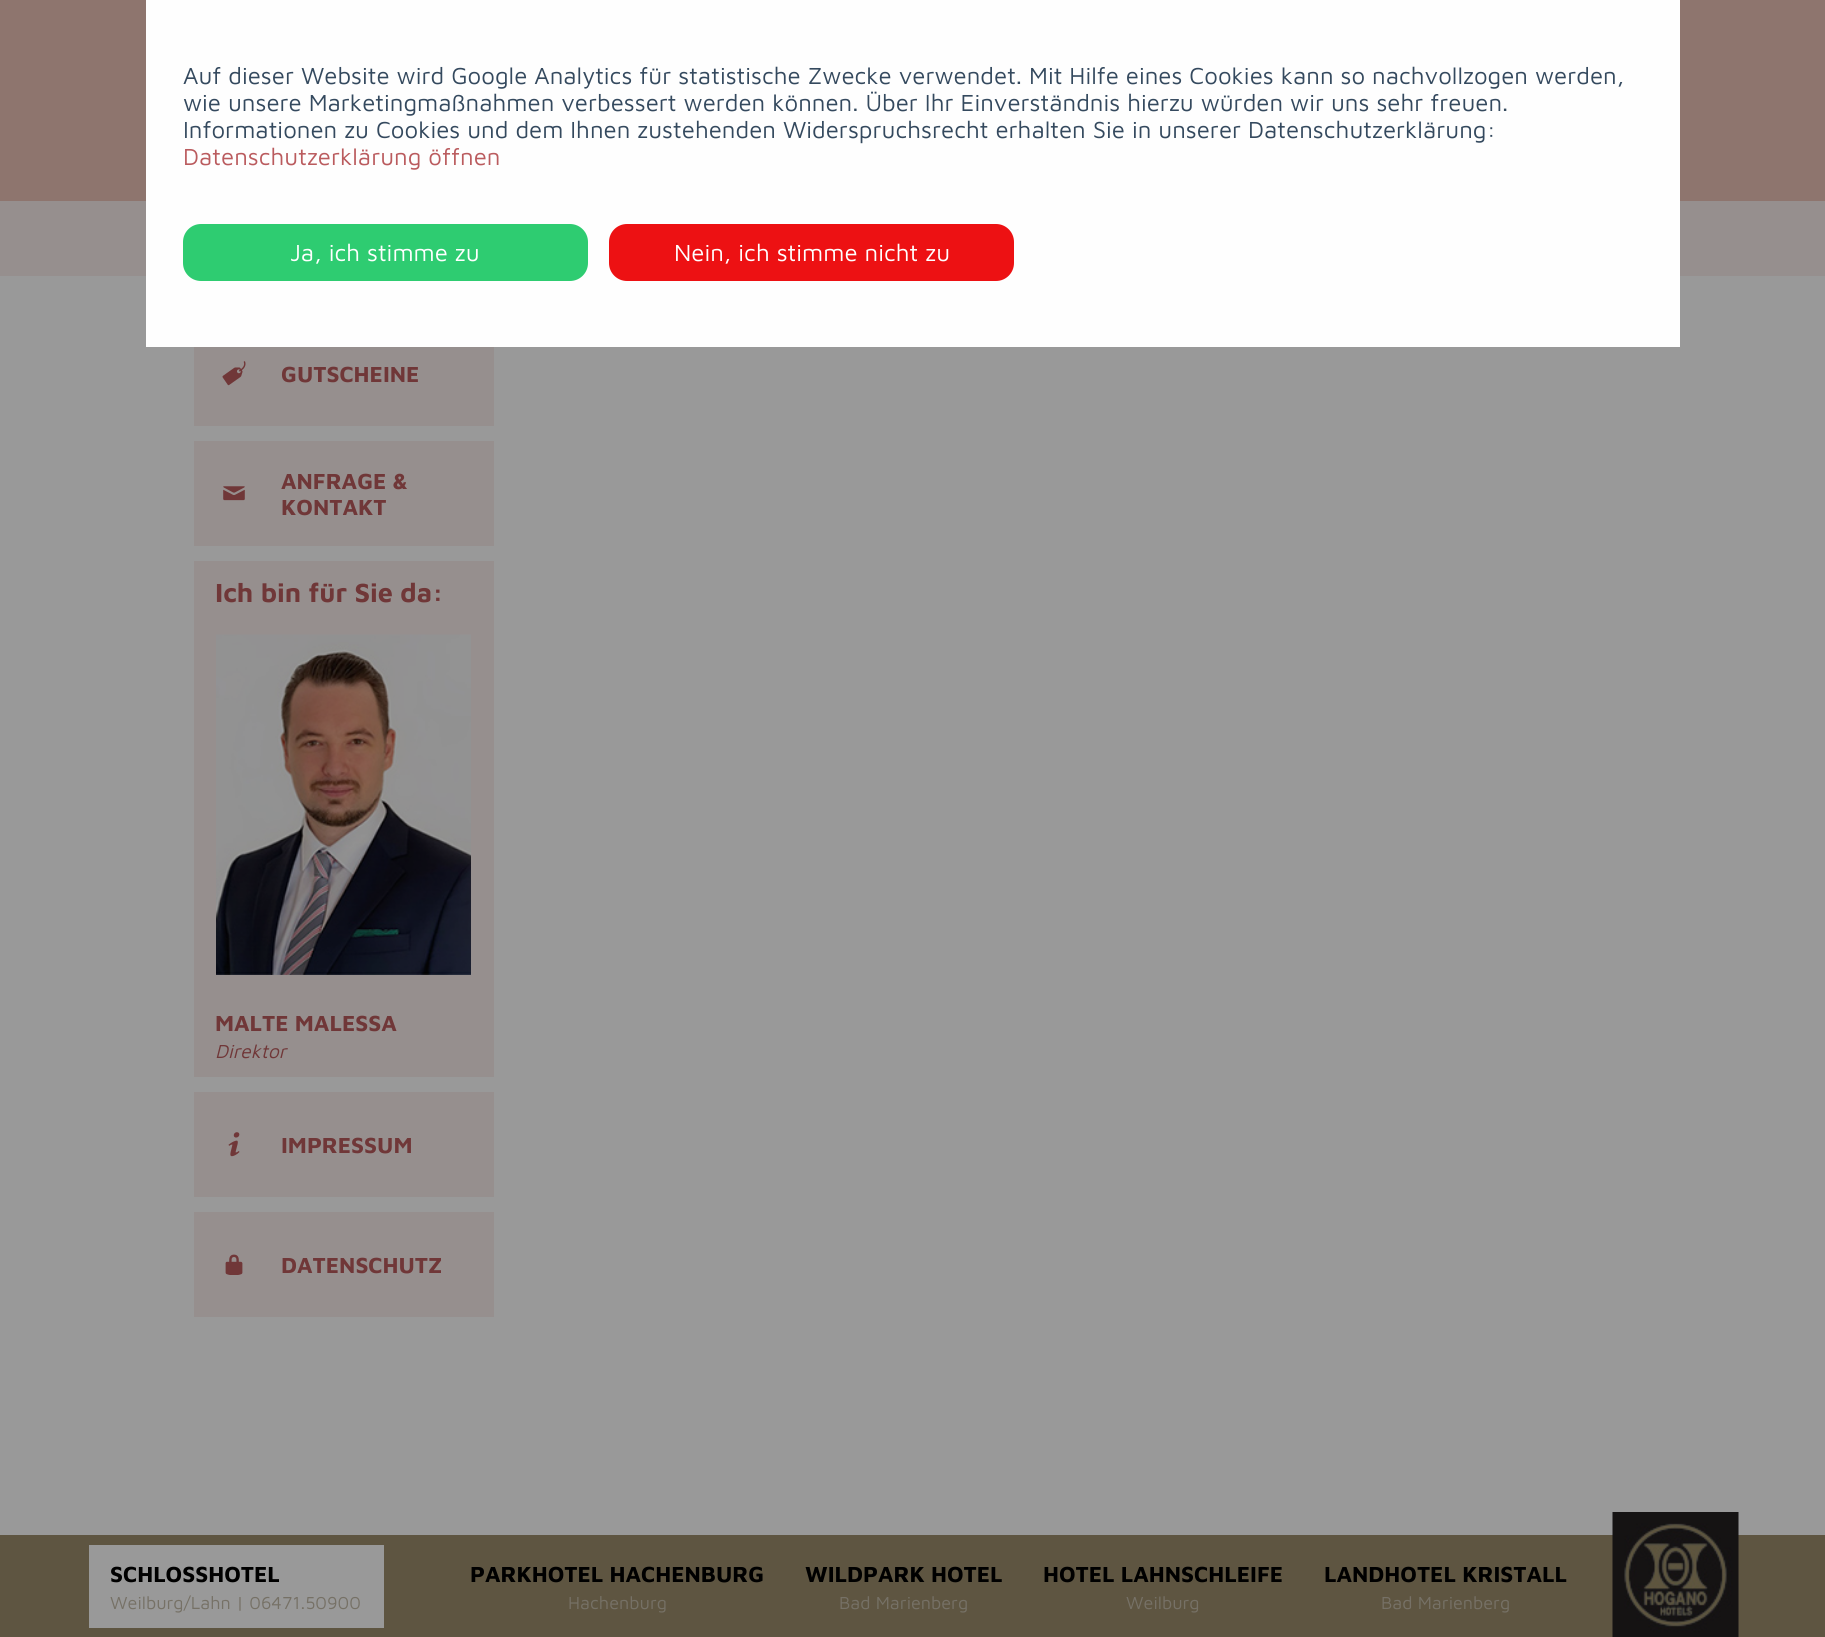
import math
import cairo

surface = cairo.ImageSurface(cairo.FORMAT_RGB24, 1825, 1637)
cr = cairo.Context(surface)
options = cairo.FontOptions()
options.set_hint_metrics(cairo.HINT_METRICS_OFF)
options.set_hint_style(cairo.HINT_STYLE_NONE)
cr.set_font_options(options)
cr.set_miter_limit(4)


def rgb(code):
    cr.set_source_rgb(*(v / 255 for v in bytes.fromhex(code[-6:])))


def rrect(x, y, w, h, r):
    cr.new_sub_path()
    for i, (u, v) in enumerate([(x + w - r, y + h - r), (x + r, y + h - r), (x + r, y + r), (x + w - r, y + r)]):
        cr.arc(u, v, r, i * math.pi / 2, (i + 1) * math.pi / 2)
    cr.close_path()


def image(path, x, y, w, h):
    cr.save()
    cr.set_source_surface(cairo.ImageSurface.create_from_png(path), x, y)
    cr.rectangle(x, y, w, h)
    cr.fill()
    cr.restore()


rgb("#999999")
cr.paint()
for x, y, w, h, color in [
    (0, 0, 1825, 201, "#8e756e"),
    (0, 201, 1825, 75, "#968f8e"),
    (146, 0, 1534, 347, "#fefefe"),
]:
    rgb(color)
    cr.rectangle(x, y, w, h)
    cr.fill()
rgb("#2ecc71")
rrect(183, 224, 405, 57, 18)
cr.fill()
rgb("#ed1113")
rrect(609, 224, 405, 57, 18)
cr.fill()
rgb("#968f8e")
cr.rectangle(194, 347, 300, 79)
cr.fill()
image("img/1.png", 222, 361, 24, 25)
cr.rectangle(194, 441, 300, 105)
cr.fill()
image("img/2.png", 223, 486, 22, 15)
cr.rectangle(194, 561, 300, 516)
cr.fill()
image("img/3.png", 216, 634, 255, 341)
cr.rectangle(194, 1092, 300, 105)
cr.fill()
image("img/4.png", 228, 1132, 12, 25)
cr.rectangle(194, 1212, 300, 105)
cr.fill()
image("img/5.png", 225, 1254, 18, 21)
rgb("#5e5541")
cr.rectangle(0, 1535, 1825, 102)
cr.fill()
rgb("#999999")
cr.rectangle(89, 1545, 295, 83)
cr.fill()
image("img/6.png", 1612, 1512, 127, 125)
cr.select_font_face("Maven Pro")
cr.set_font_size(24)
rgb("#34495e")
for x, y, s in [
    (183, 84, "Auf dieser Website wird Google Analytics für statistische Zwecke verwendet. Mit Hilfe eines Cookies kann so nachvollzogen werden,"),
    (183, 111, "wie unsere Marketingmaßnahmen verbessert werden können. Über Ihr Einverständnis hierzu würden wir uns sehr freuen."),
    (183, 138, "Informationen zu Cookies und dem Ihnen zustehenden Widerspruchsrecht erhalten Sie in unserer Datenschutzerklärung:"),
]:
    cr.move_to(x, y)
    cr.show_text(s)
rgb("#ba5b5e")
cr.move_to(183, 165)
cr.show_text("Datenschutzerklärung öffnen")
rgb("#ffffff")
cr.move_to(290, 261)
cr.show_text("Ja, ich stimme zu")
cr.move_to(674, 261)
cr.show_text("Nein, ich stimme nicht zu")
cr.select_font_face("Maven Pro", cairo.FONT_SLANT_NORMAL, cairo.FONT_WEIGHT_BOLD)
cr.set_font_size(22.5)
rgb("#703738")
for x, y, s in [
    (281, 382, "GUTSCHEINE"),
    (281, 489, "ANFRAGE &"),
    (281, 515, "KONTAKT"),
]:
    cr.move_to(x, y)
    cr.show_text(s)
cr.set_font_size(27)
cr.move_to(215, 602)
cr.show_text("Ich bin für Sie da:")
cr.set_font_size(22.5)
cr.move_to(215, 1031)
cr.show_text("MALTE MALESSA")
cr.select_font_face("Maven Pro", cairo.FONT_SLANT_ITALIC)
cr.set_font_size(19.5)
cr.move_to(215, 1058)
cr.show_text("Direktor")
cr.select_font_face("Maven Pro", cairo.FONT_SLANT_NORMAL, cairo.FONT_WEIGHT_BOLD)
cr.set_font_size(22.5)
cr.move_to(281, 1153)
cr.show_text("IMPRESSUM")
cr.move_to(281, 1273)
cr.show_text("DATENSCHUTZ")
rgb("#000000")
cr.move_to(110, 1582)
cr.show_text("SCHLOSSHOTEL")
cr.select_font_face("Maven Pro")
cr.set_font_size(18)
rgb("#767166")
cr.move_to(110, 1609)
cr.show_text("Weilburg/Lahn | 06471.50900")
cr.select_font_face("Maven Pro", cairo.FONT_SLANT_NORMAL, cairo.FONT_WEIGHT_BOLD)
cr.set_font_size(22.5)
rgb("#000000")
cr.move_to(470, 1582)
cr.show_text("PARKHOTEL HACHENBURG")
cr.select_font_face("Maven Pro")
cr.set_font_size(18)
rgb("#767166")
cr.move_to(568, 1609)
cr.show_text("Hachenburg")
cr.select_font_face("Maven Pro", cairo.FONT_SLANT_NORMAL, cairo.FONT_WEIGHT_BOLD)
cr.set_font_size(22.5)
rgb("#000000")
cr.move_to(805, 1582)
cr.show_text("WILDPARK HOTEL")
cr.select_font_face("Maven Pro")
cr.set_font_size(18)
rgb("#767166")
cr.move_to(839, 1609)
cr.show_text("Bad Marienberg")
cr.select_font_face("Maven Pro", cairo.FONT_SLANT_NORMAL, cairo.FONT_WEIGHT_BOLD)
cr.set_font_size(22.5)
rgb("#000000")
cr.move_to(1043, 1582)
cr.show_text("HOTEL LAHNSCHLEIFE")
cr.select_font_face("Maven Pro")
cr.set_font_size(18)
rgb("#767166")
cr.move_to(1126, 1609)
cr.show_text("Weilburg")
cr.select_font_face("Maven Pro", cairo.FONT_SLANT_NORMAL, cairo.FONT_WEIGHT_BOLD)
cr.set_font_size(22.5)
rgb("#000000")
cr.move_to(1324, 1582)
cr.show_text("LANDHOTEL KRISTALL")
cr.select_font_face("Maven Pro")
cr.set_font_size(18)
rgb("#767166")
cr.move_to(1381, 1609)
cr.show_text("Bad Marienberg")
surface.write_to_png("page.png")
